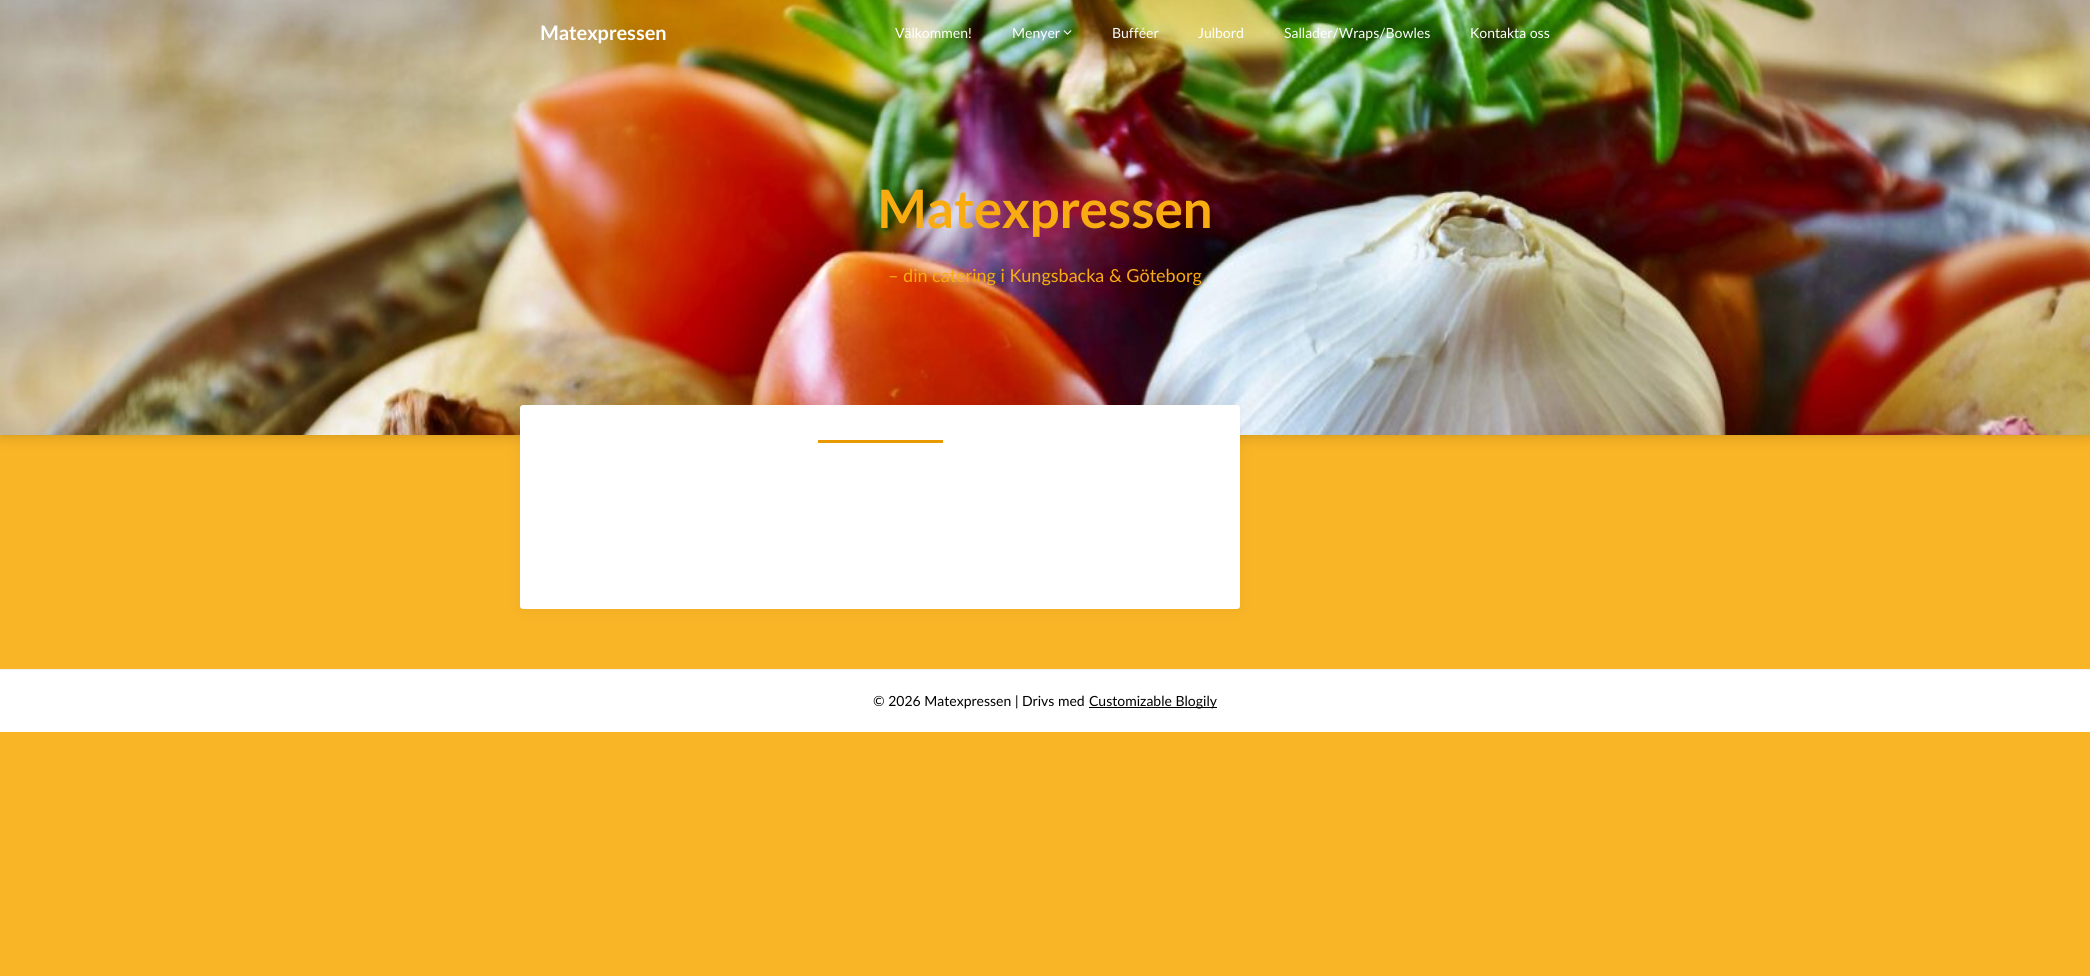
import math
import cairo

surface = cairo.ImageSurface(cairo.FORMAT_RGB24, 2090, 976)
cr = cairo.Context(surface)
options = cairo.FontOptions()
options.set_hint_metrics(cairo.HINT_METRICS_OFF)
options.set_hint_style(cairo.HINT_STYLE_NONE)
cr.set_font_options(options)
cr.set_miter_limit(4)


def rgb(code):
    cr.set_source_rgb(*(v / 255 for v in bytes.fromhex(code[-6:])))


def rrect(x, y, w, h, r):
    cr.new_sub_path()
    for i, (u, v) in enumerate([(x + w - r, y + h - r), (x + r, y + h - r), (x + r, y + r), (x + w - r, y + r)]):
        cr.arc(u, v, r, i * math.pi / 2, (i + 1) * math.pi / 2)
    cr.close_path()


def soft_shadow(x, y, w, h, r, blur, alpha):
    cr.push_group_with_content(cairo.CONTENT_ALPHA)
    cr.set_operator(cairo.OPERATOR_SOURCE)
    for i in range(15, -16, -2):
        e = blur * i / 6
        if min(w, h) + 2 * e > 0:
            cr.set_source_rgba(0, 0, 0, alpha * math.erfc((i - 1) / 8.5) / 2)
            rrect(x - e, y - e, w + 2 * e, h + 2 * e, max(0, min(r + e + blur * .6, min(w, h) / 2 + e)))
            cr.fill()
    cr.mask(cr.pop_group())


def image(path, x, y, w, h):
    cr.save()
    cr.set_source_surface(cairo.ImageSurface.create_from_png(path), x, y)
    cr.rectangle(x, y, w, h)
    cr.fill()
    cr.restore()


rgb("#fab526")
cr.paint()
rgb("#000000")
soft_shadow(0, 0, 2090, 435, 0, 7.5, 0.2)
image("img/1.png", 0, 0, 2090, 435)
image("img/2.png", 1063, 30, 9, 5)
soft_shadow(520, 406, 720, 204, 3, 7.5, 0.05)
rgb("#ffffff")
rrect(520, 405, 720, 204, 3)
cr.fill()
for x, y, w, h, color in [
    (818, 440, 125, 3, "#e89a00"),
    (0, 670, 2090, 62, "#ffffff"),
    (0, 669, 2090, 1, "#f2f2f2"),
    (1089, 707, 128, 1, "#000000"),
]:
    rgb(color)
    cr.rectangle(x, y, w, h)
    cr.fill()
cr.select_font_face("Lato", cairo.FONT_SLANT_NORMAL, cairo.FONT_WEIGHT_BOLD)
cr.set_font_size(20)
rgb("#ffffff")
cr.move_to(540, 40)
cr.show_text("Matexpressen")
cr.select_font_face("Lato")
cr.set_font_size(14)
for x, y, s in [
    (895, 38, "Välkommen!"),
    (1012, 38, "Menyer"),
    (1112, 38, "Bufféer"),
    (1198, 38, "Julbord"),
    (1284, 38, "Sallader/Wraps/Bowles"),
    (1470, 38, "Kontakta oss"),
]:
    cr.move_to(x, y)
    cr.show_text(s)
cr.select_font_face("Lato", cairo.FONT_SLANT_NORMAL, cairo.FONT_WEIGHT_BOLD)
cr.set_font_size(53)
rgb("#f9ac11")
cr.move_to(877, 228)
cr.show_text("Matexpressen")
cr.select_font_face("Lato")
cr.set_font_size(18)
cr.move_to(888, 282)
cr.show_text("– din catering i Kungsbacka & Göteborg")
cr.set_font_size(14)
rgb("#000000")
cr.move_to(873, 706)
cr.show_text("© 2026 Matexpressen | Drivs med")
cr.move_to(1089, 706)
cr.show_text("Customizable Blogily")
surface.write_to_png("page.png")
